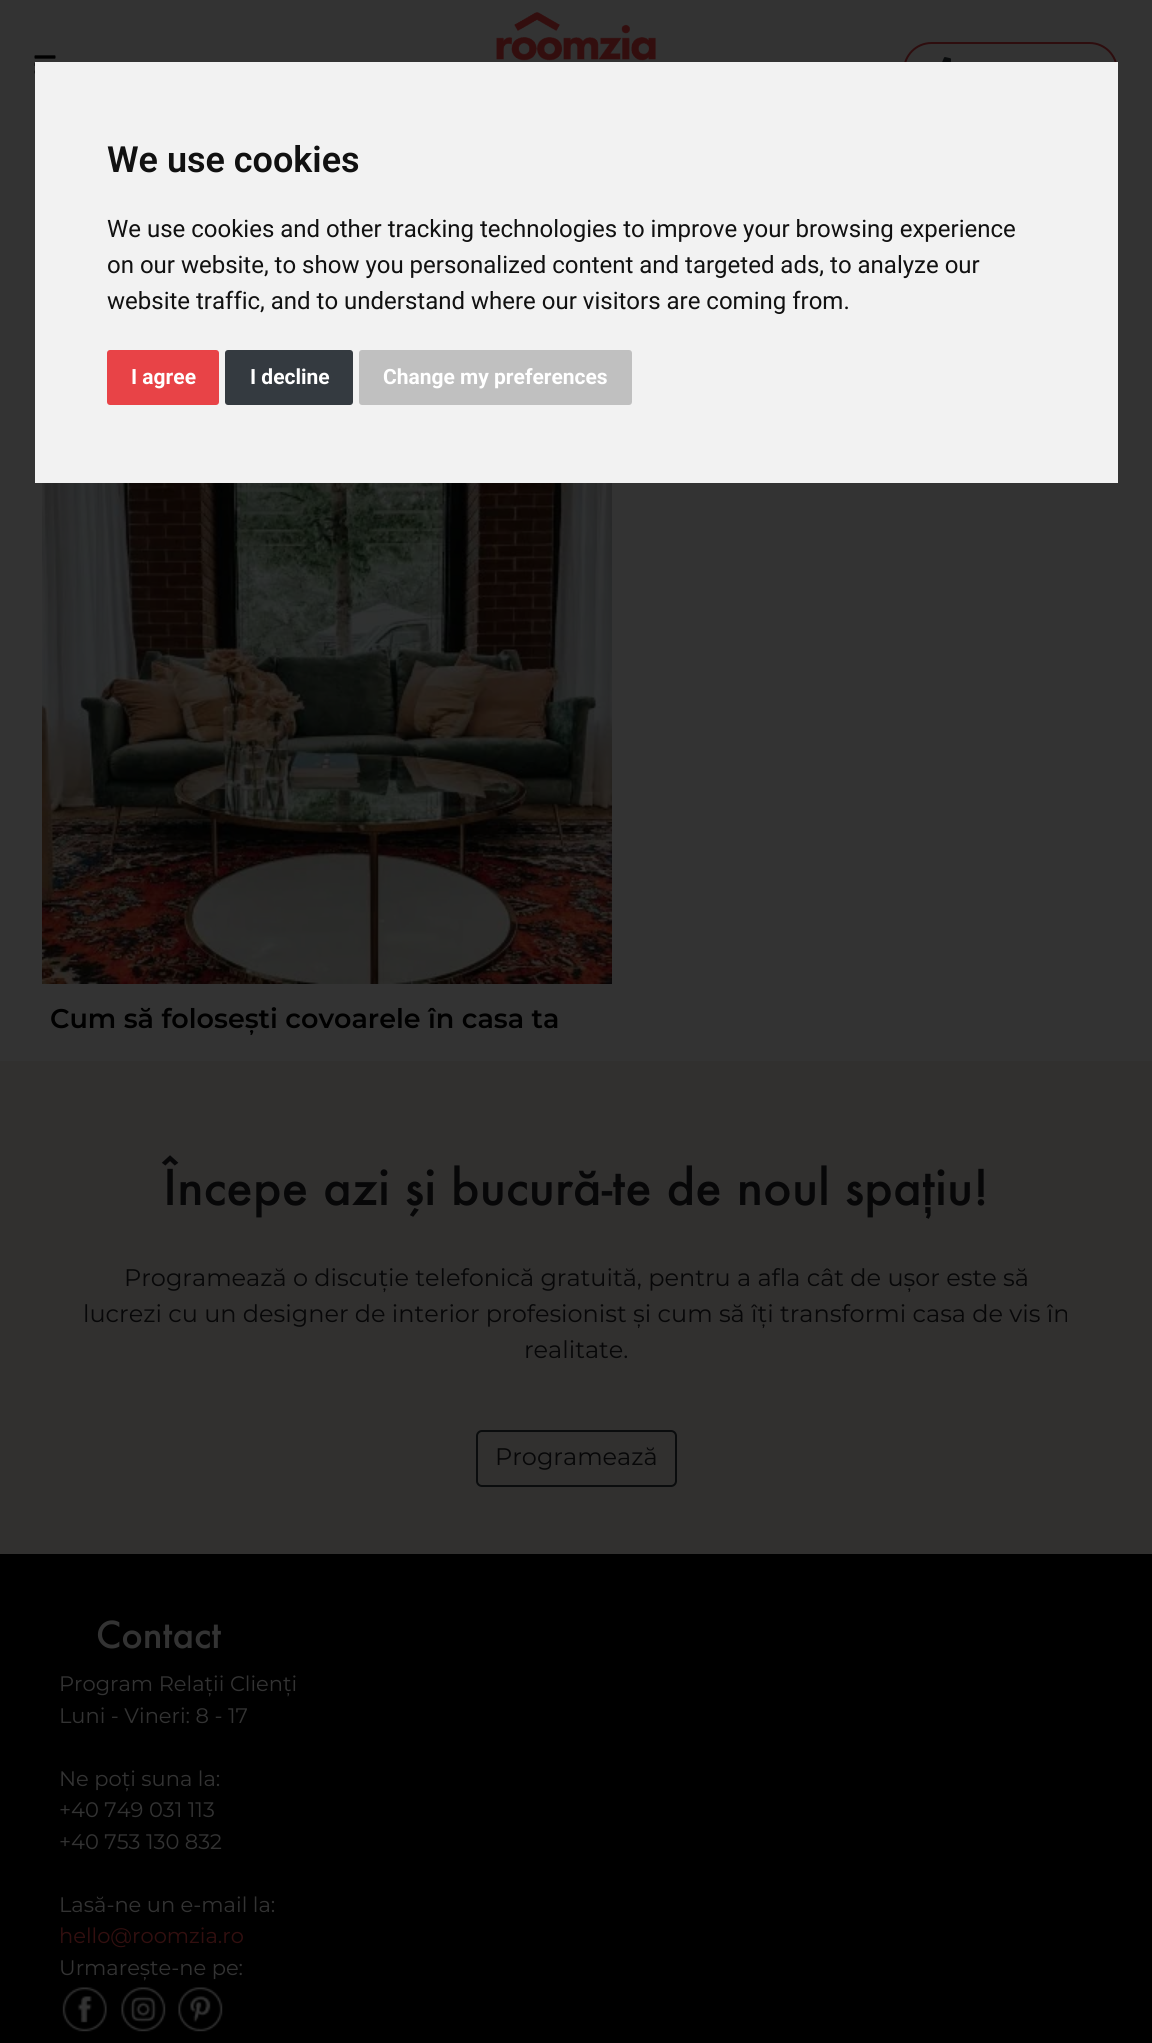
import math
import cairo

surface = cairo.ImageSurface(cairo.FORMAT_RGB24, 1152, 2043)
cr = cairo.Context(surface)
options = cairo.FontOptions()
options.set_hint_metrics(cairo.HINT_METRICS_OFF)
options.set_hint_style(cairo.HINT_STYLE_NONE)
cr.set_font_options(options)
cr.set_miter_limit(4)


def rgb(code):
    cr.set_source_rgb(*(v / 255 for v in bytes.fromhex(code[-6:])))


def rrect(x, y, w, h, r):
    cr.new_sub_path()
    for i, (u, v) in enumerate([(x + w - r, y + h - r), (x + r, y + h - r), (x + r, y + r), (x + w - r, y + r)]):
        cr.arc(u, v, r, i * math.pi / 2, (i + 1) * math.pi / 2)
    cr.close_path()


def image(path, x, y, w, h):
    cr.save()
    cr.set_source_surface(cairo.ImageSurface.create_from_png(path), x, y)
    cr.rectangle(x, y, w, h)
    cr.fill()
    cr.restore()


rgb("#333333")
cr.paint()
image("img/1.png", 34, 55, 22, 19)
image("img/2.png", 496, 12, 160, 49)
rrect(904, 43, 213, 55, 27.5)
rgb("#2e0d0e")
cr.stroke()
image("img/3.png", 942, 57, 10, 5)
rgb("#f2f2f2")
cr.rectangle(35, 62, 1083, 421)
cr.fill()
rgb("#e84347")
rrect(107, 350, 112, 55, 3)
cr.fill()
rgb("#343a40")
rrect(225, 350, 128, 55, 3)
cr.fill()
rgb("#c0c0c0")
rrect(359, 350, 273, 55, 3)
cr.fill()
image("img/4.png", 42, 483, 570, 501)
rgb("#31302f")
cr.rectangle(0, 1061, 1152, 493)
cr.fill()
rrect(477, 1431, 199, 55, 5)
rgb("#0a0c0d")
cr.stroke()
rgb("#000000")
cr.rectangle(0, 1554, 1152, 489)
cr.fill()
image("img/5.png", 62, 1987, 45, 45)
image("img/6.png", 121, 1987, 45, 45)
image("img/7.png", 178, 1987, 45, 45)
cr.select_font_face("Roboto SemiBold")
cr.set_font_size(36)
rgb("#111111")
cr.move_to(107, 172)
cr.show_text("We use cookies")
cr.select_font_face("Roboto")
cr.set_font_size(24)
for x, y, s in [
    (107, 237, "We use cookies and other tracking technologies to improve your browsing experience"),
    (107, 273, "on our website, to show you personalized content and targeted ads, to analyze our"),
    (107, 309, "website traffic, and to understand where our visitors are coming from."),
]:
    cr.move_to(x, y)
    cr.show_text(s)
cr.select_font_face("Roboto", cairo.FONT_SLANT_NORMAL, cairo.FONT_WEIGHT_BOLD)
cr.set_font_size(21)
rgb("#ffffff")
for x, y, s in [
    (131, 384, "I agree"),
    (250, 384, "I decline"),
    (383, 384, "Change my preferences"),
]:
    cr.move_to(x, y)
    cr.show_text(s)
cr.select_font_face("Montserrat SemiBold")
cr.set_font_size(27)
rgb("#000000")
cr.move_to(50, 1028)
cr.show_text("Cum să folosești covoarele în casa ta")
cr.select_font_face("Futura Medium")
cr.set_font_size(48)
rgb("#070708")
cr.move_to(163, 1205)
cr.show_text("Începe azi și bucură-te de noul spațiu!")
cr.select_font_face("Montserrat")
cr.set_font_size(24)
for x, y, s in [
    (124, 1286, "Programează o discuție telefonică gratuită, pentru a afla cât de ușor este să"),
    (83, 1322, "lucrezi cu un designer de interior profesionist și cum să îți transformi casa de vis în"),
    (524, 1358, "realitate."),
    (495, 1465, "Programează"),
]:
    cr.move_to(x, y)
    cr.show_text(s)
cr.select_font_face("Futura Medium")
cr.set_font_size(36)
rgb("#333333")
cr.move_to(96, 1648)
cr.show_text("Contact")
cr.select_font_face("Montserrat")
cr.set_font_size(21)
for x, y, s in [
    (59, 1691, "Program Relații Clienți"),
    (59, 1723, "Luni - Vineri: 8 - 17"),
    (59, 1786, "Ne poți suna la:"),
    (59, 1817, "+40 749 031 113"),
    (59, 1849, "+40 753 130 832"),
    (59, 1912, "Lasă-ne un e-mail la:"),
]:
    cr.move_to(x, y)
    cr.show_text(s)
rgb("#330f0f")
cr.move_to(59, 1943)
cr.show_text("hello@roomzia.ro")
rgb("#333333")
cr.move_to(59, 1975)
cr.show_text("Urmarește-ne pe:")
surface.write_to_png("page.png")
